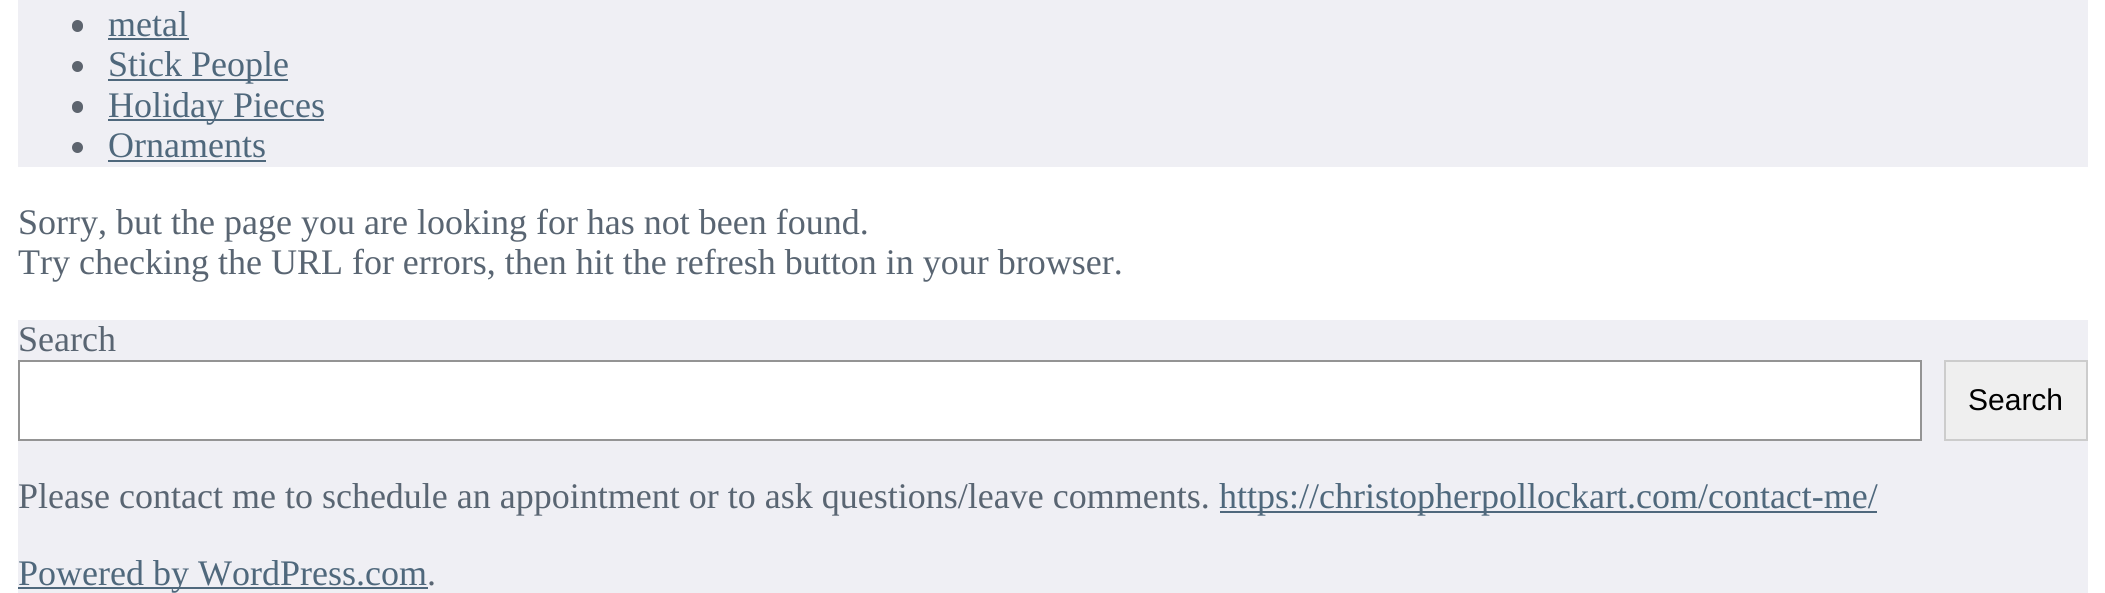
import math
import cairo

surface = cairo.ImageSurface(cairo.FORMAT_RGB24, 2105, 593)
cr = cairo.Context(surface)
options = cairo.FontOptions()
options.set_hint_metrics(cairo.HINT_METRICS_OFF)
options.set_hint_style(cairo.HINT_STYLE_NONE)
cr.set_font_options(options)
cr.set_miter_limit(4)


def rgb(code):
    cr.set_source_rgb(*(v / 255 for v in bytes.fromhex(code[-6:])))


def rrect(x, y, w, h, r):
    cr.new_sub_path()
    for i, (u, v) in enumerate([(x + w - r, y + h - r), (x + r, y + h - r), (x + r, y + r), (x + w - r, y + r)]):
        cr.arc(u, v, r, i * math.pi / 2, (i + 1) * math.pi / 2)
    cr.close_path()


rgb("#ffffff")
cr.paint()
rgb("#efeff4")
cr.rectangle(18, 0, 2070, 167)
cr.fill()
rgb("#5d646e")
rrect(72, 20, 11, 12, 5.5)
cr.fill()
rgb("#4f687c")
cr.rectangle(108, 38, 81, 2)
cr.fill()
rgb("#5d646e")
cr.arc(77.5, 66.5, 5.5, 0, 2 * math.pi)
cr.fill()
rgb("#4f687c")
cr.rectangle(108, 79, 180, 2)
cr.fill()
rgb("#5d646e")
rrect(72, 101, 11, 12, 5.5)
cr.fill()
rgb("#4f687c")
cr.rectangle(108, 119, 216, 2)
cr.fill()
rgb("#5d646e")
cr.arc(77.5, 147.5, 5.5, 0, 2 * math.pi)
cr.fill()
rgb("#4f687c")
cr.rectangle(108, 160, 158, 2)
cr.fill()
rgb("#efeff4")
cr.rectangle(18, 320, 2070, 273)
cr.fill()
rgb("#ffffff")
cr.rectangle(19, 361, 1902, 79)
cr.fill_preserve()
rgb("#949494")
cr.stroke()
rgb("#efefef")
cr.rectangle(1945, 361, 142, 79)
cr.fill_preserve()
rgb("#cccccc")
cr.stroke()
rgb("#4f687c")
cr.rectangle(1220, 511, 657, 2)
cr.fill()
cr.rectangle(18, 587, 410, 2)
cr.fill()
cr.select_font_face("Liberation Serif")
cr.set_font_size(36)
for x, y, s in [
    (108, 36, "metal"),
    (108, 76, "Stick People"),
    (108, 117, "Holiday Pieces"),
    (108, 157, "Ornaments"),
]:
    cr.move_to(x, y)
    cr.show_text(s)
rgb("#596572")
for x, y, s in [
    (18, 234, "Sorry, but the page you are looking for has not been found."),
    (18, 274, "Try checking the URL for errors, then hit the refresh button in your browser."),
    (18, 351, "Search"),
]:
    cr.move_to(x, y)
    cr.show_text(s)
cr.select_font_face("Liberation Sans")
cr.set_font_size(30)
rgb("#000000")
cr.move_to(1968, 410)
cr.show_text("Search")
cr.select_font_face("Liberation Serif")
cr.set_font_size(36)
rgb("#596572")
cr.move_to(18, 508)
cr.show_text("Please contact me to schedule an appointment or to ask questions/leave comments.")
rgb("#4f687c")
cr.move_to(1219, 508)
cr.show_text("https://christopherpollockart.com/contact-me/")
cr.move_to(18, 585)
cr.show_text("Powered by WordPress.com")
rgb("#596572")
cr.move_to(427, 585)
cr.show_text(".")
surface.write_to_png("page.png")
